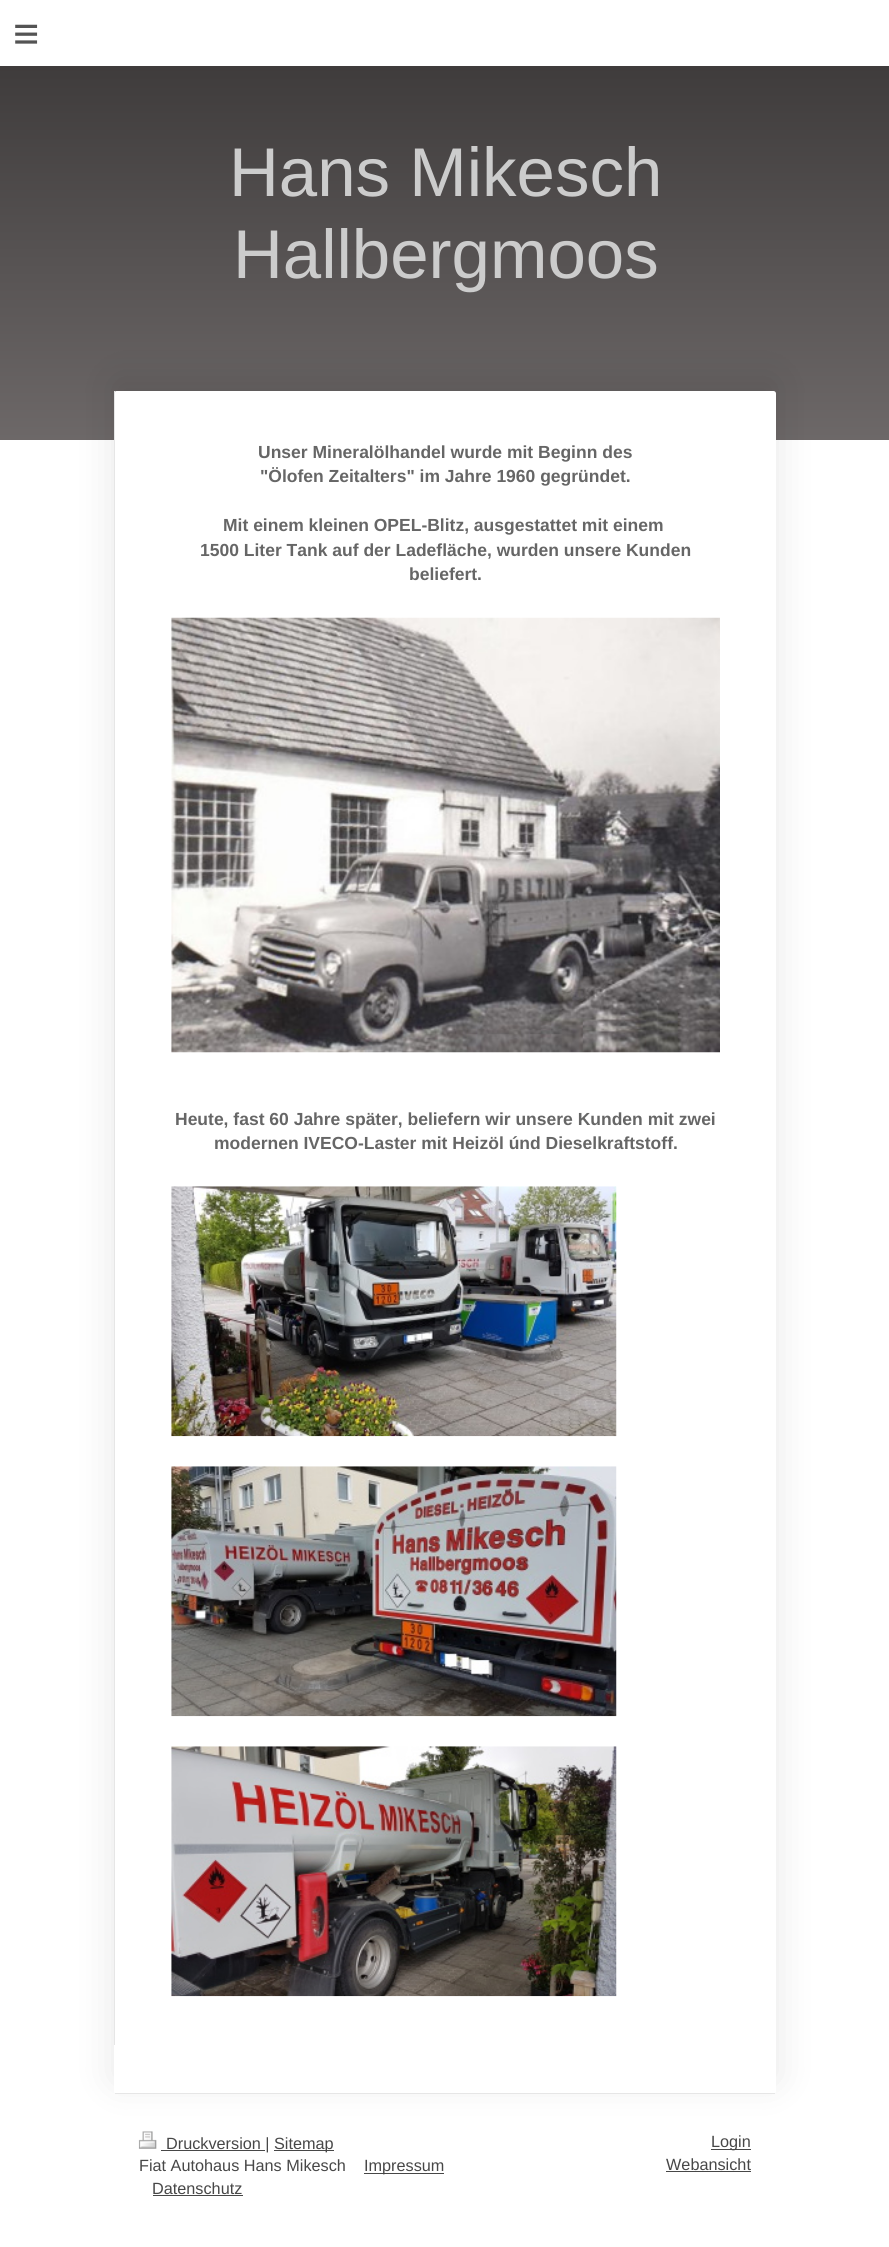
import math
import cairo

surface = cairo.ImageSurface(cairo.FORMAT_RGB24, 889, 2247)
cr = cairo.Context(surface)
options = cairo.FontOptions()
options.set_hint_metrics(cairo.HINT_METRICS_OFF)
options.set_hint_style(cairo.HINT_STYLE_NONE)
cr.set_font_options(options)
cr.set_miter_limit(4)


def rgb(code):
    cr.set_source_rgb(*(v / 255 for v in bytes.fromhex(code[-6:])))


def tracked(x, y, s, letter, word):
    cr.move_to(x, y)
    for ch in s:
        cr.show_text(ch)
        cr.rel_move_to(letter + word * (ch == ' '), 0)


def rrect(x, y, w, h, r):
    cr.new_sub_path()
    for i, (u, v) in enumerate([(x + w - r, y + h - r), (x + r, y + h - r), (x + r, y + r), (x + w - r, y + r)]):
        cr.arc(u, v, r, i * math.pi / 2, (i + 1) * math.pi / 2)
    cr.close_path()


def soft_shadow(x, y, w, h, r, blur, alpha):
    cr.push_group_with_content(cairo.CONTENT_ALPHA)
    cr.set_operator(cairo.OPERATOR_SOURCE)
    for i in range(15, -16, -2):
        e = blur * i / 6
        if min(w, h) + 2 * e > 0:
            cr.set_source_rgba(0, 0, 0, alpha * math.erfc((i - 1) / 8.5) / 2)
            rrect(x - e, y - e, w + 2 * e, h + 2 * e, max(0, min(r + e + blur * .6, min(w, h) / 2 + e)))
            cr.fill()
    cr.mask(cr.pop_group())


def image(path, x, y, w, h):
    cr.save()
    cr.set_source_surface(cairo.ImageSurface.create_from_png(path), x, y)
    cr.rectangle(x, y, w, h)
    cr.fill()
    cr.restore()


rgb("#ffffff")
cr.paint()
gradient = cairo.LinearGradient(0, 440, 0, 66)
gradient.add_color_stop_rgba(0, 0.427, 0.408, 0.408, 1)
gradient.add_color_stop_rgba(1, 0.247, 0.235, 0.235, 1)
cr.set_source(gradient)
cr.rectangle(0, 66, 889, 374)
cr.fill()
rgb("#000000")
soft_shadow(114, 379, 662, 1702, 2.5, 19, 0.1)
rgb("#ffffff")
rrect(114, 391, 662, 1703, 2.5)
cr.fill()
rgb("#e6e6e6")
cr.rectangle(115, 2093, 660, 1)
cr.fill()
cr.rectangle(114, 391, 1, 1654)
cr.fill()
image("img/1.png", 171, 617, 549, 436)
image("img/2.png", 171, 1186, 446, 251)
image("img/3.png", 171, 1466, 446, 251)
image("img/4.png", 171, 1746, 446, 251)
image("img/5.png", 138, 2131, 19, 18)
for x, y, w, h, color in [
    (161, 2150, 104, 1, "#474747"),
    (274, 2150, 60, 1, "#474747"),
    (364, 2173, 80, 1, "#474747"),
    (153, 2195, 90, 1, "#474747"),
    (711, 2149, 40, 1, "#474747"),
    (666, 2171, 85, 1, "#474747"),
]:
    rgb(color)
    cr.rectangle(x, y, w, h)
    cr.fill()
cr.select_font_face("Liberation Sans")
cr.set_font_size(45)
rgb("#545454")
tracked(13, 49, "≡", 13, 0)
cr.set_font_size(69)
rgb("#cccccc")
cr.move_to(229, 196)
cr.show_text("Hans Mikesch")
cr.move_to(233, 278)
cr.show_text("Hallbergmoos")
cr.select_font_face("Liberation Sans", cairo.FONT_SLANT_NORMAL, cairo.FONT_WEIGHT_BOLD)
cr.set_font_size(17.5)
rgb("#666666")
for x, y, s in [
    (258, 458, "Unser Mineralölhandel wurde mit Beginn des"),
    (260, 482, "\"Ölofen Zeitalters\" im Jahre 1960 gegründet."),
    (223, 531, "Mit einem kleinen OPEL-Blitz, ausgestattet mit einem"),
    (200, 556, "1500 Liter Tank auf der Ladefläche, wurden unsere Kunden"),
    (409, 580, "beliefert."),
    (175, 1125, "Heute, fast 60 Jahre später, beliefern wir unsere Kunden mit zwei"),
    (214, 1149, "modernen IVECO-Laster mit Heizöl únd Dieselkraftstoff."),
]:
    cr.move_to(x, y)
    cr.show_text(s)
cr.select_font_face("Liberation Sans")
cr.set_font_size(16.25)
rgb("#474747")
for x, y, s in [
    (166, 2149, "Druckversion |"),
    (274, 2149, "Sitemap"),
    (139, 2171, "Fiat Autohaus Hans Mikesch"),
    (364, 2171, "Impressum"),
    (152, 2194, "Datenschutz"),
    (711, 2147, "Login"),
    (666, 2170, "Webansicht"),
]:
    cr.move_to(x, y)
    cr.show_text(s)
surface.write_to_png("page.png")
